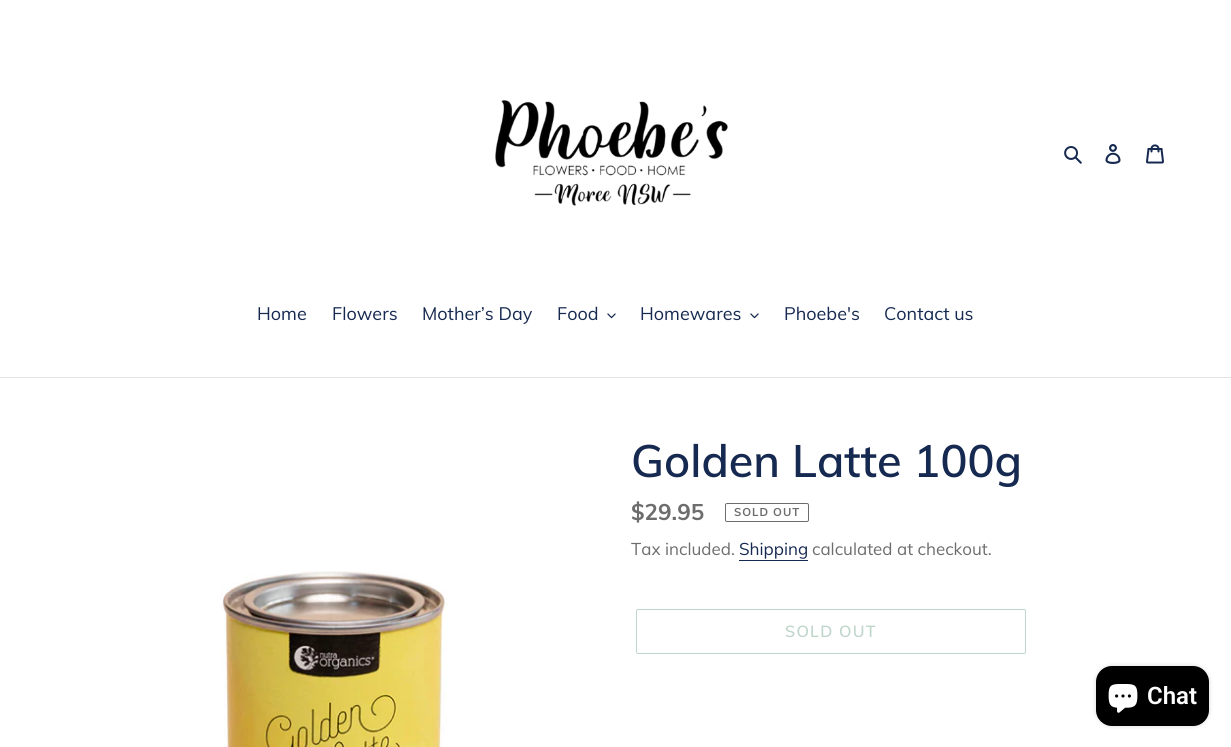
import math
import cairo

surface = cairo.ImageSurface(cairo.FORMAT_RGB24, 1231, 747)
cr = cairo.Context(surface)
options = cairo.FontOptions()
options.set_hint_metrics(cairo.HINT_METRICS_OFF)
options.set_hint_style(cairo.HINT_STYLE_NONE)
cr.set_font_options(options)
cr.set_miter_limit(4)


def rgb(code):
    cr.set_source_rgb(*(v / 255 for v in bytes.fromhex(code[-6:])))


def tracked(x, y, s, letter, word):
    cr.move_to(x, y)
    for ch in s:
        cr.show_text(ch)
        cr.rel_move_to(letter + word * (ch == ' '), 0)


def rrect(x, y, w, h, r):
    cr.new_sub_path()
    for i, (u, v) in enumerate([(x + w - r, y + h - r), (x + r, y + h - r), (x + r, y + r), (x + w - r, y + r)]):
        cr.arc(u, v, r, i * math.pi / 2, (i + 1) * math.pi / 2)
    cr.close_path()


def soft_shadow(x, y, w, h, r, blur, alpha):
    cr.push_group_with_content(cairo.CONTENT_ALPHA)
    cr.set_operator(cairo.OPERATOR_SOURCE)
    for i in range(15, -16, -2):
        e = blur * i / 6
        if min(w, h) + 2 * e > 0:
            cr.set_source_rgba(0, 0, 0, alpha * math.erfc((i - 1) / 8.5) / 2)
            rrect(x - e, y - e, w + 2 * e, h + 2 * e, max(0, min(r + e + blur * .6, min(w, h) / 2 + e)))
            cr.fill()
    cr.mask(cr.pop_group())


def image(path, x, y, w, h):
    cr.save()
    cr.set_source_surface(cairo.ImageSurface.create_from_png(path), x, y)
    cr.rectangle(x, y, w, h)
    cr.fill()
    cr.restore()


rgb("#ffffff")
cr.paint()
image("img/1.png", 495, 100, 233, 106)
image("img/2.png", 1064, 146, 18, 18)
image("img/3.png", 1105, 144, 16, 20)
image("img/4.png", 1146, 144, 18, 20)
rgb("#e4e4e4")
cr.rectangle(0, 377, 1231, 1)
cr.fill()
image("img/5.png", 607, 313, 9, 6)
image("img/5.png", 750, 313, 9, 6)
rrect(725.5, 503.5, 83, 18, 1.5)
rgb("#6d6d6d")
cr.set_line_width(1)
cr.stroke()
rgb("#162950")
cr.rectangle(739, 560, 69, 1)
cr.fill()
rrect(636.5, 609.5, 389, 44, 1.5)
rgb("#bfd6cb")
cr.stroke()
image("img/6.png", 221, 571, 227, 176)
rgb("#000000")
soft_shadow(1096, 666, 113, 60, 16, 2.5, 0.15)
rgb("#000000")
rrect(1096, 666, 113, 60, 16)
cr.fill()
image("img/7.png", 1108, 684, 30, 29)
cr.select_font_face("Muli")
cr.set_font_size(18)
rgb("#162950")
for x, y, s in [
    (257, 320, "Home"),
    (332, 320, "Flowers"),
    (422, 320, "Mother’s Day"),
    (557, 320, "Food"),
    (640, 320, "Homewares"),
    (784, 320, "Phoebe's"),
    (884, 320, "Contact us"),
]:
    cr.move_to(x, y)
    cr.show_text(s)
cr.select_font_face("Muli SemiBold")
cr.set_font_size(45)
cr.move_to(631, 477)
cr.show_text("Golden Latte 100g")
cr.select_font_face("Muli", cairo.FONT_SLANT_NORMAL, cairo.FONT_WEIGHT_BOLD)
cr.set_font_size(22.5)
rgb("#6d6d6d")
cr.move_to(631, 520)
cr.show_text("$29.95")
cr.set_font_size(11.25)
tracked(734, 516, "SOLD OUT", 1, 0)
cr.select_font_face("Muli")
cr.set_font_size(17)
cr.move_to(631, 555)
cr.show_text("Tax included.")
rgb("#162950")
cr.move_to(739, 555)
cr.show_text("Shipping")
rgb("#6d6d6d")
cr.move_to(812, 555)
cr.show_text("calculated at checkout.")
cr.select_font_face("Muli SemiBold")
cr.set_font_size(16)
rgb("#bfd6cb")
tracked(785, 637, "SOLD OUT", 1.25, 0)
cr.select_font_face("Roboto SemiBold")
cr.set_font_size(24)
rgb("#ffffff")
cr.move_to(1147, 704)
cr.show_text("Chat")
surface.write_to_png("page.png")
